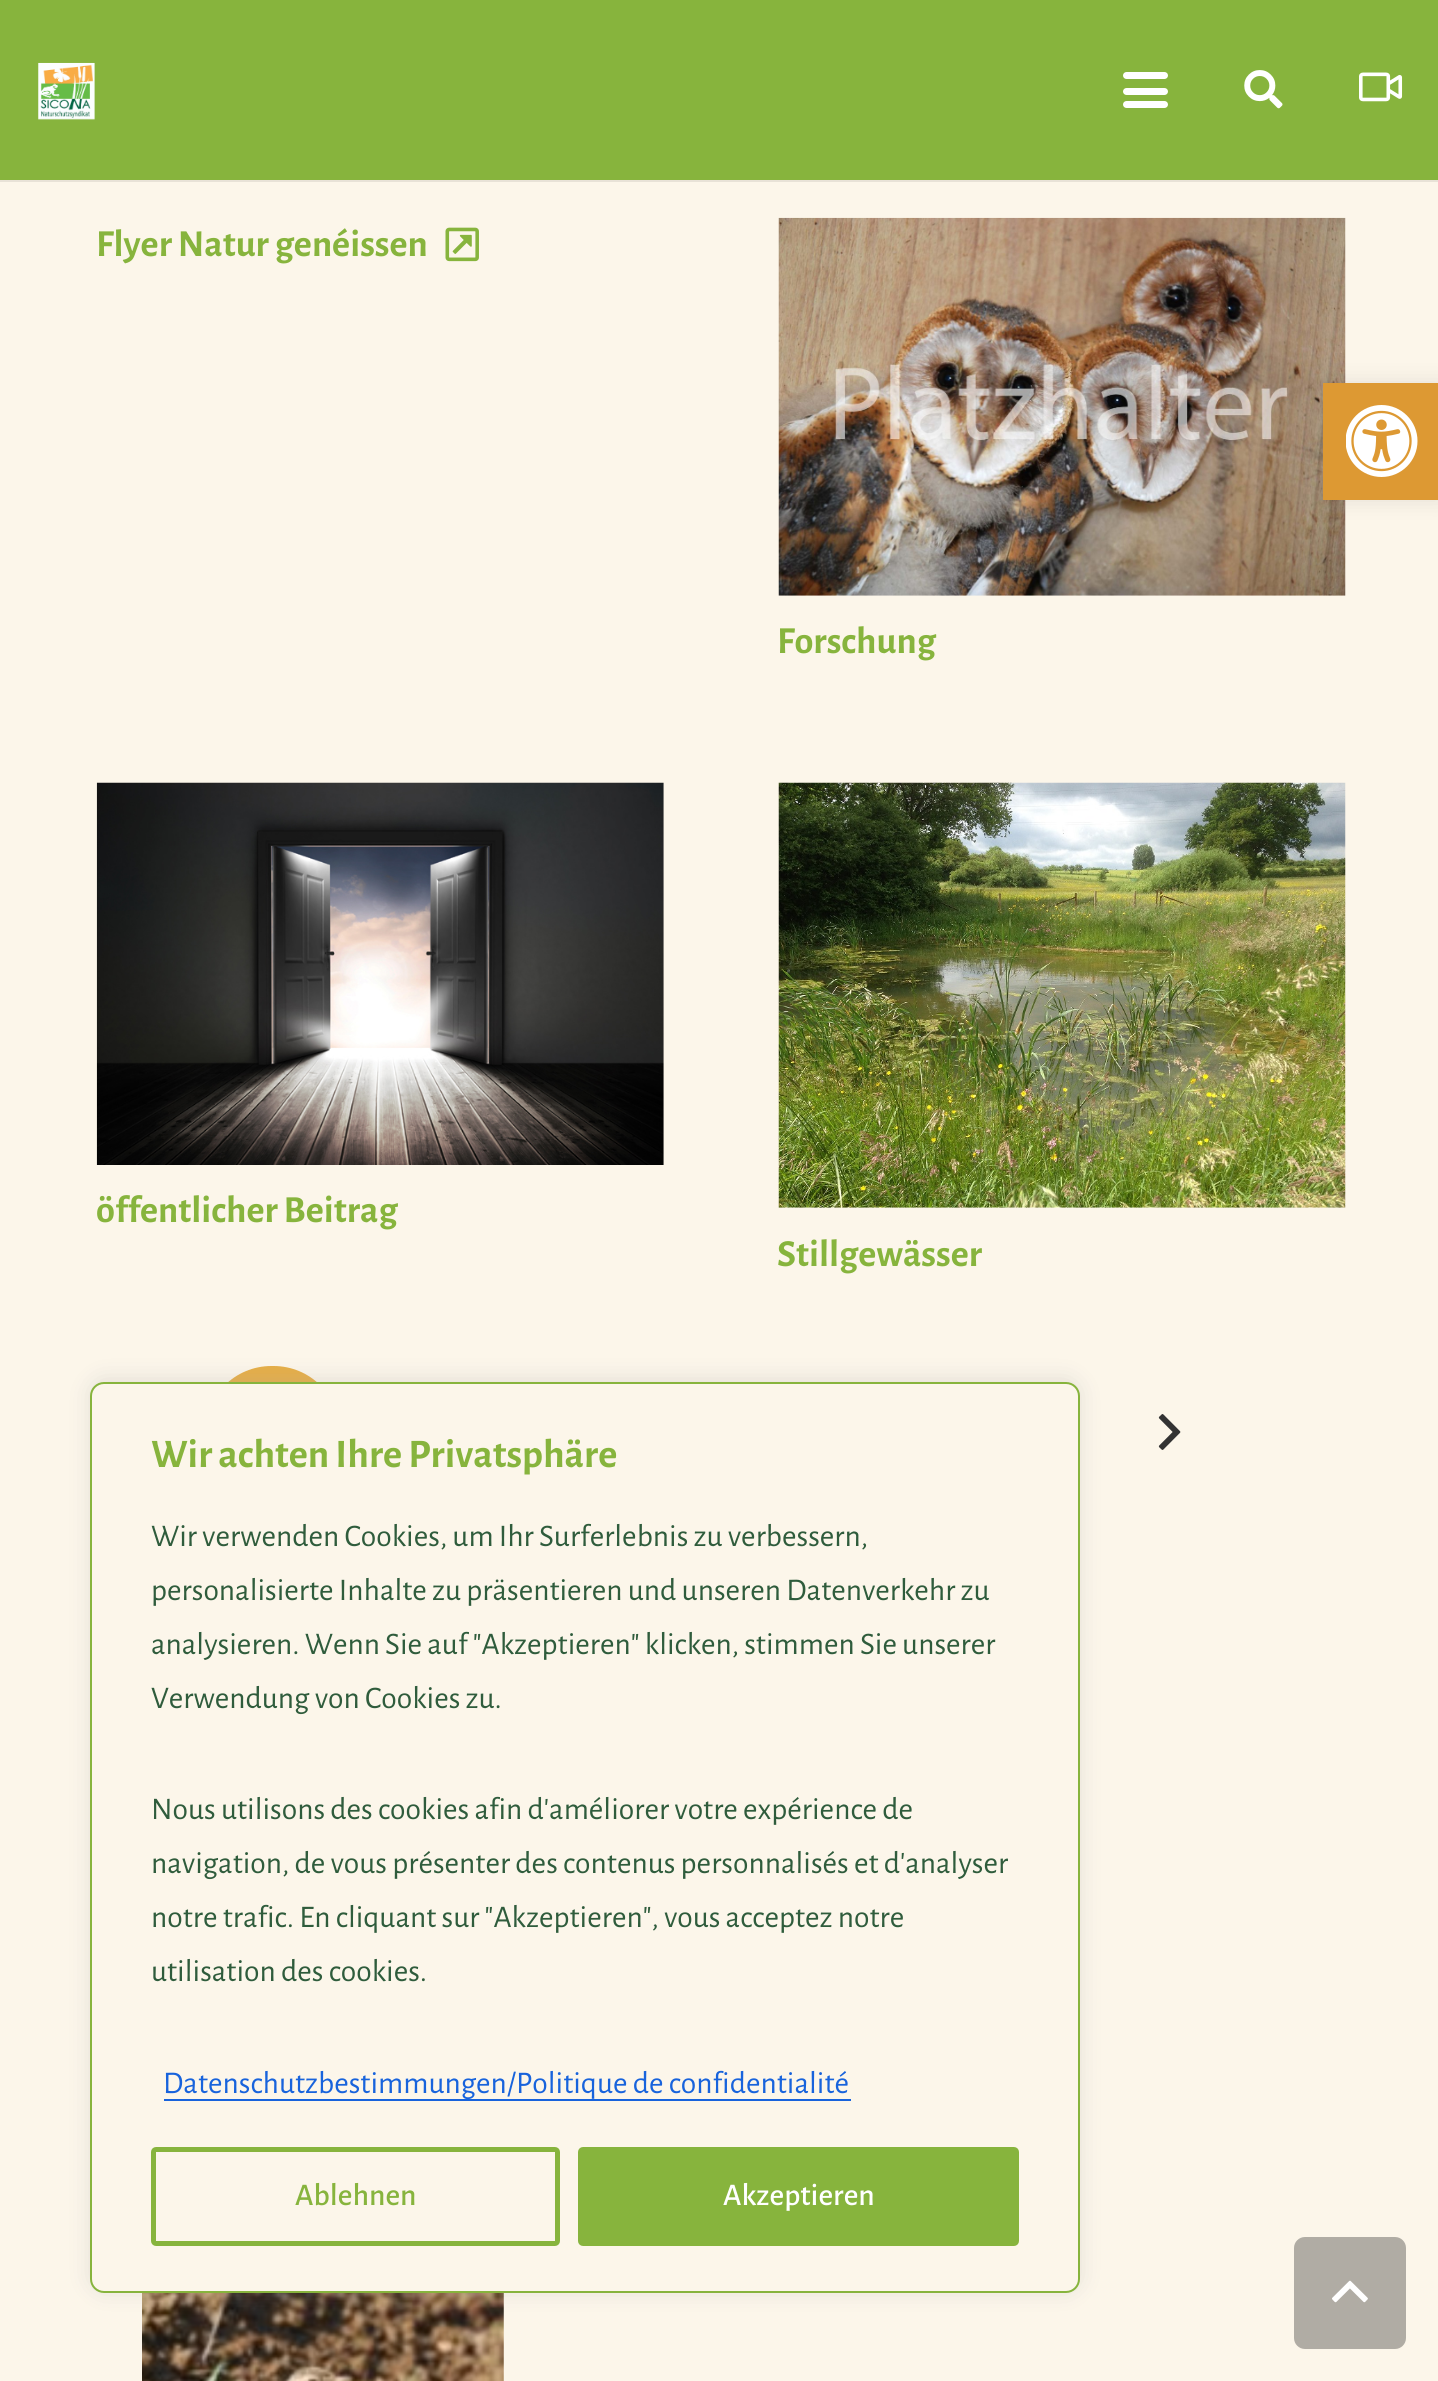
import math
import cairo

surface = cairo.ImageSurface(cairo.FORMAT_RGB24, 1438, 2381)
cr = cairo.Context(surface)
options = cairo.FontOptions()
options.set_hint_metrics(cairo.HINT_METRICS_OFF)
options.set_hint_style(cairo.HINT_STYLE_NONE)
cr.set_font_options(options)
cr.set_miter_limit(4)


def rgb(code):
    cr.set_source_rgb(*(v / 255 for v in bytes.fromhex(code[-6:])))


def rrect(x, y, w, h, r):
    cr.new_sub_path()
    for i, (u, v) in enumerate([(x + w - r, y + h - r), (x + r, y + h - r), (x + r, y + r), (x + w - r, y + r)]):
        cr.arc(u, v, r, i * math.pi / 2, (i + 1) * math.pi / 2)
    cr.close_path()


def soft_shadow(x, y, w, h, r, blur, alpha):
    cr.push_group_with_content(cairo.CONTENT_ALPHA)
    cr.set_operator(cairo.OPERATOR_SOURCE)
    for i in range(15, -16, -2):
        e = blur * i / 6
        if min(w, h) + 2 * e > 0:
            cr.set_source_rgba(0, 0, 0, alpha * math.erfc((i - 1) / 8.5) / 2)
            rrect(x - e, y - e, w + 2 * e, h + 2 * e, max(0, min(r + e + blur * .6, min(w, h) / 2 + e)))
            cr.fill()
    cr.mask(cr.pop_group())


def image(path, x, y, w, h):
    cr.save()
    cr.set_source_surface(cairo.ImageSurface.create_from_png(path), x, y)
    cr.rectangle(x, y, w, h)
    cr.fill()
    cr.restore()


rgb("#fcf6ea")
cr.paint()
rgb("#e8e2d7")
cr.rectangle(0, 180, 1438, 2)
cr.fill()
rgb("#87b43d")
cr.rectangle(0, 0, 1438, 180)
cr.fill()
image("img/1.png", 38, 62, 57, 58)
rgb("#ffffff")
rrect(1123, 88, 45, 7, 3.5)
cr.fill()
rrect(1123, 72, 45, 7, 3.5)
cr.fill()
rrect(1123, 101, 45, 7, 3.5)
cr.fill()
image("img/2.png", 1244, 70, 39, 39)
image("img/3.png", 1359, 72, 44, 30)
image("img/4.png", 445, 227, 34, 35)
image("img/5.png", 778, 217, 568, 379)
image("img/6.png", 96, 782, 568, 383)
image("img/7.png", 778, 782, 568, 426)
rgb("#e6ad44")
rrect(205, 1366, 135, 133, 66.5)
cr.fill()
image("img/8.png", 1158, 1414, 23, 36)
image("img/9.png", 142, 2293, 362, 88)
rgb("#000000")
soft_shadow(1323, 383, 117, 117, 0, 11, 0.1)
rgb("#dd9933")
cr.rectangle(1323, 383, 115, 117)
cr.fill()
image("img/10.png", 1346, 405, 72, 72)
rgb("#acabab")
soft_shadow(90, 1379, 990, 912, 14, 11, 0.3)
rgb("#fcf6ea")
rrect(91, 1383, 988, 909, 13)
cr.fill_preserve()
rgb("#87b43d")
cr.stroke()
rgb("#1863dc")
cr.rectangle(164, 2099, 687, 2)
cr.fill()
rrect(153.5, 2149.5, 404, 94, 2.5)
rgb("#87b43d")
cr.set_line_width(5)
cr.stroke()
rrect(580.5, 2149.5, 436, 94, 2.5)
cr.fill_preserve()
cr.stroke()
rgb("#b0aca4")
rrect(1294, 2237, 112, 112, 11)
cr.fill()
image("img/11.png", 1332, 2280, 36, 23)
cr.select_font_face("Alegreya Sans", cairo.FONT_SLANT_NORMAL, cairo.FONT_WEIGHT_BOLD)
cr.set_font_size(38.25)
rgb("#87b43d")
for x, y, s in [
    (96, 256, "Flyer Natur genéissen"),
    (777, 653, "Forschung"),
    (96, 1222, "öffentlicher Beitrag"),
    (777, 1266, "Stillgewässer"),
]:
    cr.move_to(x, y)
    cr.show_text(s)
cr.set_font_size(40.5)
cr.move_to(151, 1467)
cr.show_text("Wir achten Ihre Privatsphäre")
cr.select_font_face("Alegreya Sans")
cr.set_font_size(31.5)
rgb("#2f5c3c")
for x, y, s in [
    (151, 1546, "Wir verwenden Cookies, um Ihr Surferlebnis zu verbessern,"),
    (151, 1600, "personalisierte Inhalte zu präsentieren und unseren Datenverkehr zu"),
    (151, 1654, "analysieren. Wenn Sie auf \"Akzeptieren\" klicken, stimmen Sie unserer"),
    (151, 1708, "Verwendung von Cookies zu."),
    (151, 1819, "Nous utilisons des cookies afin d'améliorer votre expérience de"),
    (151, 1873, "navigation, de vous présenter des contenus personnalisés et d'analyser"),
    (151, 1927, "notre trafic. En cliquant sur \"Akzeptieren\", vous acceptez notre"),
    (151, 1981, "utilisation des cookies."),
]:
    cr.move_to(x, y)
    cr.show_text(s)
rgb("#1863dc")
cr.move_to(163, 2093)
cr.show_text("Datenschutzbestimmungen/Politique de confidentialité")
cr.select_font_face("Alegreya Sans Medium")
rgb("#87b43d")
cr.move_to(295, 2205)
cr.show_text("Ablehnen")
rgb("#ffffff")
cr.move_to(723, 2205)
cr.show_text("Akzeptieren")
surface.write_to_png("page.png")
